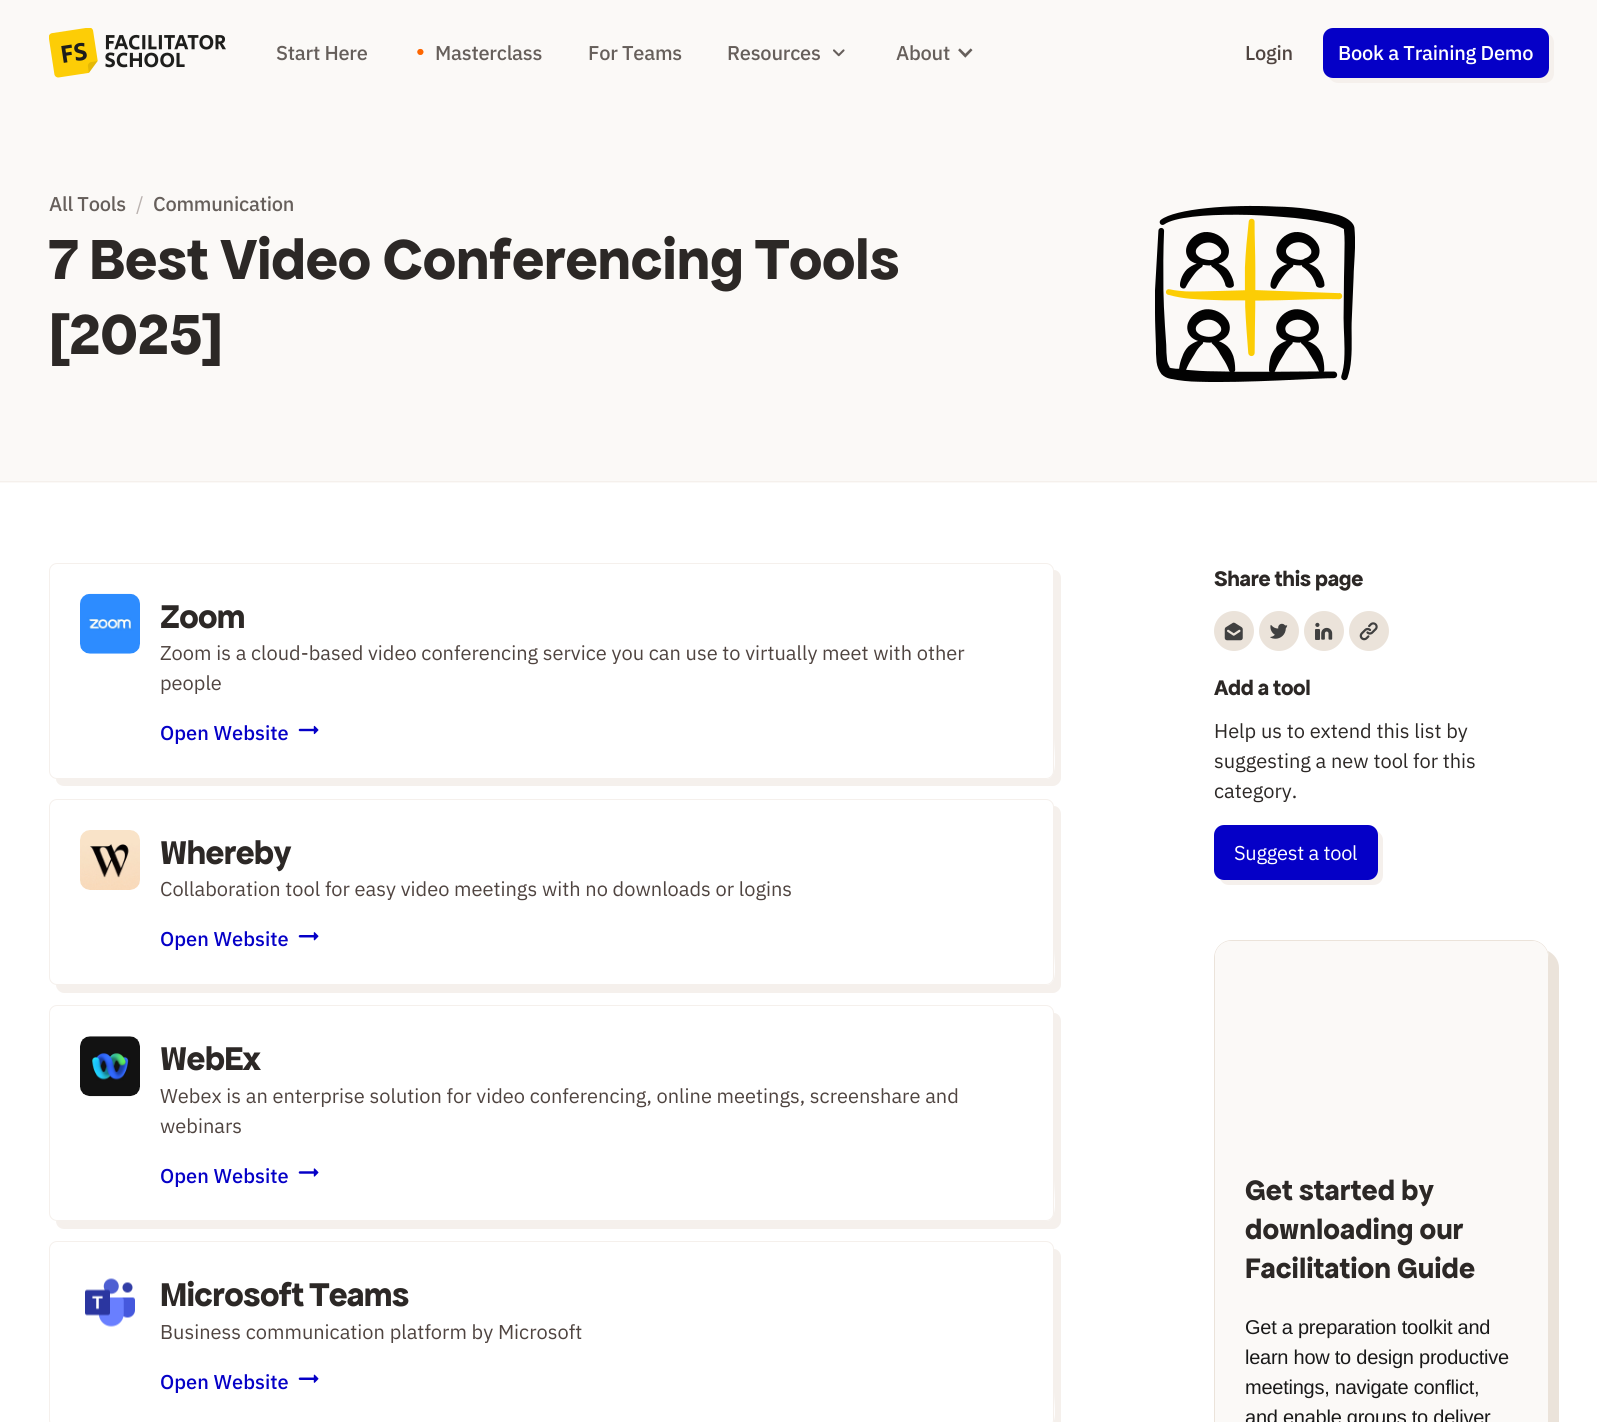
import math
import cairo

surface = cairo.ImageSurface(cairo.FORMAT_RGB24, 1597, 1422)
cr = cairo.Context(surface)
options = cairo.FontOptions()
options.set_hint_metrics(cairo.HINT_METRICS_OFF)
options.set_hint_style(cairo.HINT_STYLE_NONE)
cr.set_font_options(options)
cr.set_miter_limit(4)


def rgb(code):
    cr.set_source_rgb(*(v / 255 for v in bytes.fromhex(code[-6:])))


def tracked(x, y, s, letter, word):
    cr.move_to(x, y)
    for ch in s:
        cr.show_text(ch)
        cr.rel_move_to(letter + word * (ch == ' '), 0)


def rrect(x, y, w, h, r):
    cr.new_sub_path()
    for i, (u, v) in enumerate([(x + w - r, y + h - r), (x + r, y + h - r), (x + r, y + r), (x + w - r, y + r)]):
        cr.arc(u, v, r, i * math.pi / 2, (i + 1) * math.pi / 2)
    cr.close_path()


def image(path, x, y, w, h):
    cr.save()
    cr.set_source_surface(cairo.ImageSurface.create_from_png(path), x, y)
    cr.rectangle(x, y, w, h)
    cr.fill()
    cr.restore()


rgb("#ffffff")
cr.paint()
rgb("#fbf9f7")
cr.rectangle(0, 0, 1597, 483)
cr.fill()
image("img/1.png", 49, 28, 177, 50)
image("img/2.png", 417, 48, 7, 7)
image("img/3.png", 833, 49, 12, 8)
image("img/4.png", 958, 48, 15, 10)
rgb("#f5f0ec")
cr.new_path()
cr.move_to(1329, 77)
cr.curve_to(1330, 80, 1334, 83, 1338, 83)
cr.line_to(1544, 83)
cr.curve_to(1550, 83, 1554, 79, 1554, 73)
cr.line_to(1554, 43)
cr.curve_to(1554, 39, 1552, 35, 1548, 34)
cr.line_to(1549, 38)
cr.line_to(1549, 68)
cr.curve_to(1549, 73, 1544, 78, 1539, 78)
cr.line_to(1332, 78)
cr.close_path()
cr.fill()
rgb("#0500c7")
rrect(1323, 28, 226, 50, 10)
cr.fill()
rgb("#f5f0ec")
cr.rectangle(0, 481, 1597, 1)
cr.fill()
image("img/5.png", 1155, 205, 200, 177)
cr.new_path()
cr.move_to(56, 779)
cr.curve_to(56, 783, 60, 786, 64, 786)
cr.line_to(1053, 786)
cr.curve_to(1057, 786, 1061, 782, 1061, 778)
cr.line_to(1061, 578)
cr.curve_to(1061, 574, 1058, 570, 1054, 570)
cr.line_to(1054, 738)
cr.curve_to(1054, 753, 1059, 779, 1046, 779)
cr.close_path()
cr.fill()
rgb("#ffffff")
rrect(49.5, 563.5, 1004, 215, 7.5)
cr.fill_preserve()
rgb("#f5f0ec")
cr.set_line_width(1)
cr.stroke()
image("img/6.png", 80, 593, 60, 61)
image("img/7.png", 298, 725, 21, 10)
cr.new_path()
cr.move_to(56, 985)
cr.curve_to(56, 989, 60, 993, 64, 993)
cr.line_to(1053, 993)
cr.curve_to(1057, 993, 1061, 989, 1061, 985)
cr.line_to(1061, 814)
cr.curve_to(1061, 810, 1058, 806, 1054, 806)
cr.line_to(1054, 949)
cr.curve_to(1054, 963, 1059, 985, 1046, 985)
cr.close_path()
cr.fill()
rgb("#ffffff")
rrect(49.5, 799.5, 1004, 185, 7.5)
cr.fill_preserve()
rgb("#f5f0ec")
cr.stroke()
image("img/8.png", 80, 830, 60, 60)
image("img/9.png", 298, 932, 21, 9)
cr.new_path()
cr.move_to(56, 1221)
cr.curve_to(56, 1226, 60, 1229, 64, 1229)
cr.line_to(1053, 1229)
cr.curve_to(1057, 1229, 1061, 1225, 1061, 1221)
cr.line_to(1061, 1021)
cr.curve_to(1061, 1017, 1058, 1013, 1054, 1013)
cr.line_to(1054, 1180)
cr.curve_to(1054, 1195, 1059, 1221, 1046, 1221)
cr.close_path()
cr.fill()
rgb("#ffffff")
rrect(49.5, 1005.5, 1004, 215, 7.5)
cr.fill_preserve()
rgb("#f5f0ec")
cr.stroke()
image("img/10.png", 80, 1036, 60, 61)
image("img/11.png", 298, 1168, 21, 9)
cr.new_path()
cr.move_to(56, 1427)
cr.curve_to(56, 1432, 60, 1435, 64, 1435)
cr.line_to(1053, 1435)
cr.curve_to(1057, 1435, 1061, 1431, 1061, 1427)
cr.line_to(1061, 1257)
cr.curve_to(1061, 1253, 1058, 1249, 1054, 1249)
cr.line_to(1054, 1392)
cr.curve_to(1054, 1405, 1059, 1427, 1046, 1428)
cr.close_path()
cr.fill()
rgb("#ffffff")
rrect(49.5, 1241.5, 1004, 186, 7.5)
cr.fill_preserve()
rgb("#f5f0ec")
cr.stroke()
image("img/12.png", 85, 1278, 50, 49)
image("img/13.png", 298, 1374, 21, 9)
rgb("#ebe3da")
cr.arc(1234, 631, 20, 0, 2 * math.pi)
cr.fill()
image("img/14.png", 1224, 622, 19, 19)
cr.arc(1279, 631, 20, 0, 2 * math.pi)
cr.fill()
image("img/15.png", 1270, 623, 18, 16)
cr.arc(1324, 631, 20, 0, 2 * math.pi)
cr.fill()
image("img/16.png", 1315, 622, 18, 18)
cr.arc(1369, 631, 20, 0, 2 * math.pi)
cr.fill()
image("img/17.png", 1359, 622, 19, 19)
rgb("#f5f0ec")
cr.new_path()
cr.move_to(1220, 879)
cr.curve_to(1222, 883, 1225, 885, 1229, 885)
cr.line_to(1373, 885)
cr.curve_to(1379, 885, 1383, 881, 1383, 875)
cr.line_to(1383, 840)
cr.curve_to(1383, 836, 1380, 832, 1376, 831)
cr.curve_to(1377, 832, 1378, 833, 1378, 835)
cr.line_to(1378, 870)
cr.curve_to(1378, 876, 1373, 880, 1368, 880)
cr.line_to(1224, 880)
cr.close_path()
cr.fill()
rgb("#0500c7")
rrect(1214, 825, 164, 55, 10)
cr.fill()
rgb("#ebe3da")
cr.new_path()
cr.move_to(1225, 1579)
cr.curve_to(1228, 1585, 1235, 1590, 1242, 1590)
cr.line_to(1541, 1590)
cr.curve_to(1551, 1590, 1559, 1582, 1559, 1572)
cr.line_to(1559, 968)
cr.curve_to(1559, 960, 1554, 954, 1548, 951)
cr.curve_to(1548, 953, 1549, 955, 1549, 958)
cr.line_to(1549, 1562)
cr.curve_to(1549, 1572, 1541, 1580, 1531, 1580)
cr.line_to(1231, 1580)
cr.close_path()
cr.fill()
rrect(1214.5, 940.5, 334, 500, 17.5)
cr.stroke()
rgb("#fbf9f7")
rrect(1215, 941, 333, 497, 16)
cr.fill()
cr.select_font_face("IBM Plex Sans Medium")
cr.set_font_size(20)
rgb("#665f5b")
for x, y, s in [
    (276, 60, "Start Here"),
    (435, 60, "Masterclass"),
    (588, 60, "For Teams"),
    (727, 60, "Resources"),
    (896, 60, "About"),
]:
    tracked(x, y, s, -0.25, 0)
rgb("#4f4440")
tracked(1245, 60, "Login", -0.25, 0)
rgb("#ffffff")
tracked(1338, 60, "Book a Training Demo", -0.25, 0)
rgb("#665f5b")
tracked(49, 211, "All Tools", -0.25, 0)
cr.select_font_face("IBM Plex Sans")
rgb("#bab2af")
tracked(136, 211, "/", -0.25, 0)
cr.select_font_face("IBM Plex Sans Medium")
rgb("#665f5b")
tracked(153, 211, "Communication", -0.25, 0)
cr.select_font_face("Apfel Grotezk", cairo.FONT_SLANT_NORMAL, cairo.FONT_WEIGHT_BOLD)
cr.set_font_size(60)
rgb("#2c2826")
tracked(49, 279, "7 Best Video Conferencing Tools", -0.25, 0)
tracked(49, 354, "[2025]", -0.25, 0)
cr.set_font_size(35)
tracked(160, 628, "Zoom", -0.7, 0)
cr.select_font_face("IBM Plex Sans")
cr.set_font_size(20)
rgb("#4f4440")
cr.move_to(160, 660)
cr.show_text("Zoom is a cloud-based video conferencing service you can use to virtually meet with other")
cr.move_to(160, 690)
cr.show_text("people")
cr.select_font_face("IBM Plex Sans Medium")
rgb("#0500c7")
cr.move_to(160, 740)
cr.show_text("Open Website")
cr.select_font_face("Apfel Grotezk", cairo.FONT_SLANT_NORMAL, cairo.FONT_WEIGHT_BOLD)
cr.set_font_size(35)
rgb("#2c2826")
tracked(160, 864, "Whereby", -0.7, 0)
cr.select_font_face("IBM Plex Sans")
cr.set_font_size(20)
rgb("#4f4440")
cr.move_to(160, 896)
cr.show_text("Collaboration tool for easy video meetings with no downloads or logins")
cr.select_font_face("IBM Plex Sans Medium")
rgb("#0500c7")
cr.move_to(160, 946)
cr.show_text("Open Website")
cr.select_font_face("Apfel Grotezk", cairo.FONT_SLANT_NORMAL, cairo.FONT_WEIGHT_BOLD)
cr.set_font_size(35)
rgb("#2c2826")
tracked(160, 1070, "WebEx", -0.7, 0)
cr.select_font_face("IBM Plex Sans")
cr.set_font_size(20)
rgb("#4f4440")
cr.move_to(160, 1103)
cr.show_text("Webex is an enterprise solution for video conferencing, online meetings, screenshare and")
cr.move_to(160, 1133)
cr.show_text("webinars")
cr.select_font_face("IBM Plex Sans Medium")
rgb("#0500c7")
cr.move_to(160, 1183)
cr.show_text("Open Website")
cr.select_font_face("Apfel Grotezk", cairo.FONT_SLANT_NORMAL, cairo.FONT_WEIGHT_BOLD)
cr.set_font_size(35)
rgb("#2c2826")
tracked(160, 1306, "Microsoft Teams", -0.7, 0)
cr.select_font_face("IBM Plex Sans")
cr.set_font_size(20)
rgb("#4f4440")
cr.move_to(160, 1339)
cr.show_text("Business communication platform by Microsoft")
cr.select_font_face("IBM Plex Sans Medium")
rgb("#0500c7")
cr.move_to(160, 1389)
cr.show_text("Open Website")
cr.select_font_face("Apfel Grotezk", cairo.FONT_SLANT_NORMAL, cairo.FONT_WEIGHT_BOLD)
cr.set_font_size(22.5)
rgb("#2c2826")
tracked(1214, 586, "Share this page", -0.3, 0)
tracked(1214, 695, "Add a tool", -0.3, 0)
cr.select_font_face("IBM Plex Sans")
cr.set_font_size(20)
for x, y, s in [
    (1214, 738, "Help us to extend this list by"),
    (1214, 768, "suggesting a new tool for this"),
    (1214, 798, "category."),
]:
    cr.move_to(x, y)
    cr.show_text(s)
rgb("#ffffff")
tracked(1234, 860, "Suggest a tool", -0.25, 0)
cr.select_font_face("Apfel Grotezk", cairo.FONT_SLANT_NORMAL, cairo.FONT_WEIGHT_BOLD)
cr.set_font_size(30)
rgb("#2c2826")
for x, y, s in [
    (1245, 1200, "Get started by"),
    (1245, 1239, "downloading our"),
    (1245, 1278, "Facilitation Guide"),
]:
    cr.move_to(x, y)
    cr.show_text(s)
cr.select_font_face("Liberation Sans")
cr.set_font_size(20)
rgb("#191919")
for x, y, s in [
    (1245, 1334, "Get a preparation toolkit and"),
    (1245, 1364, "learn how to design productive"),
    (1245, 1394, "meetings, navigate conflict,"),
    (1245, 1424, "and enable groups to deliver"),
]:
    tracked(x, y, s, -0.25, 0)
surface.write_to_png("page.png")
